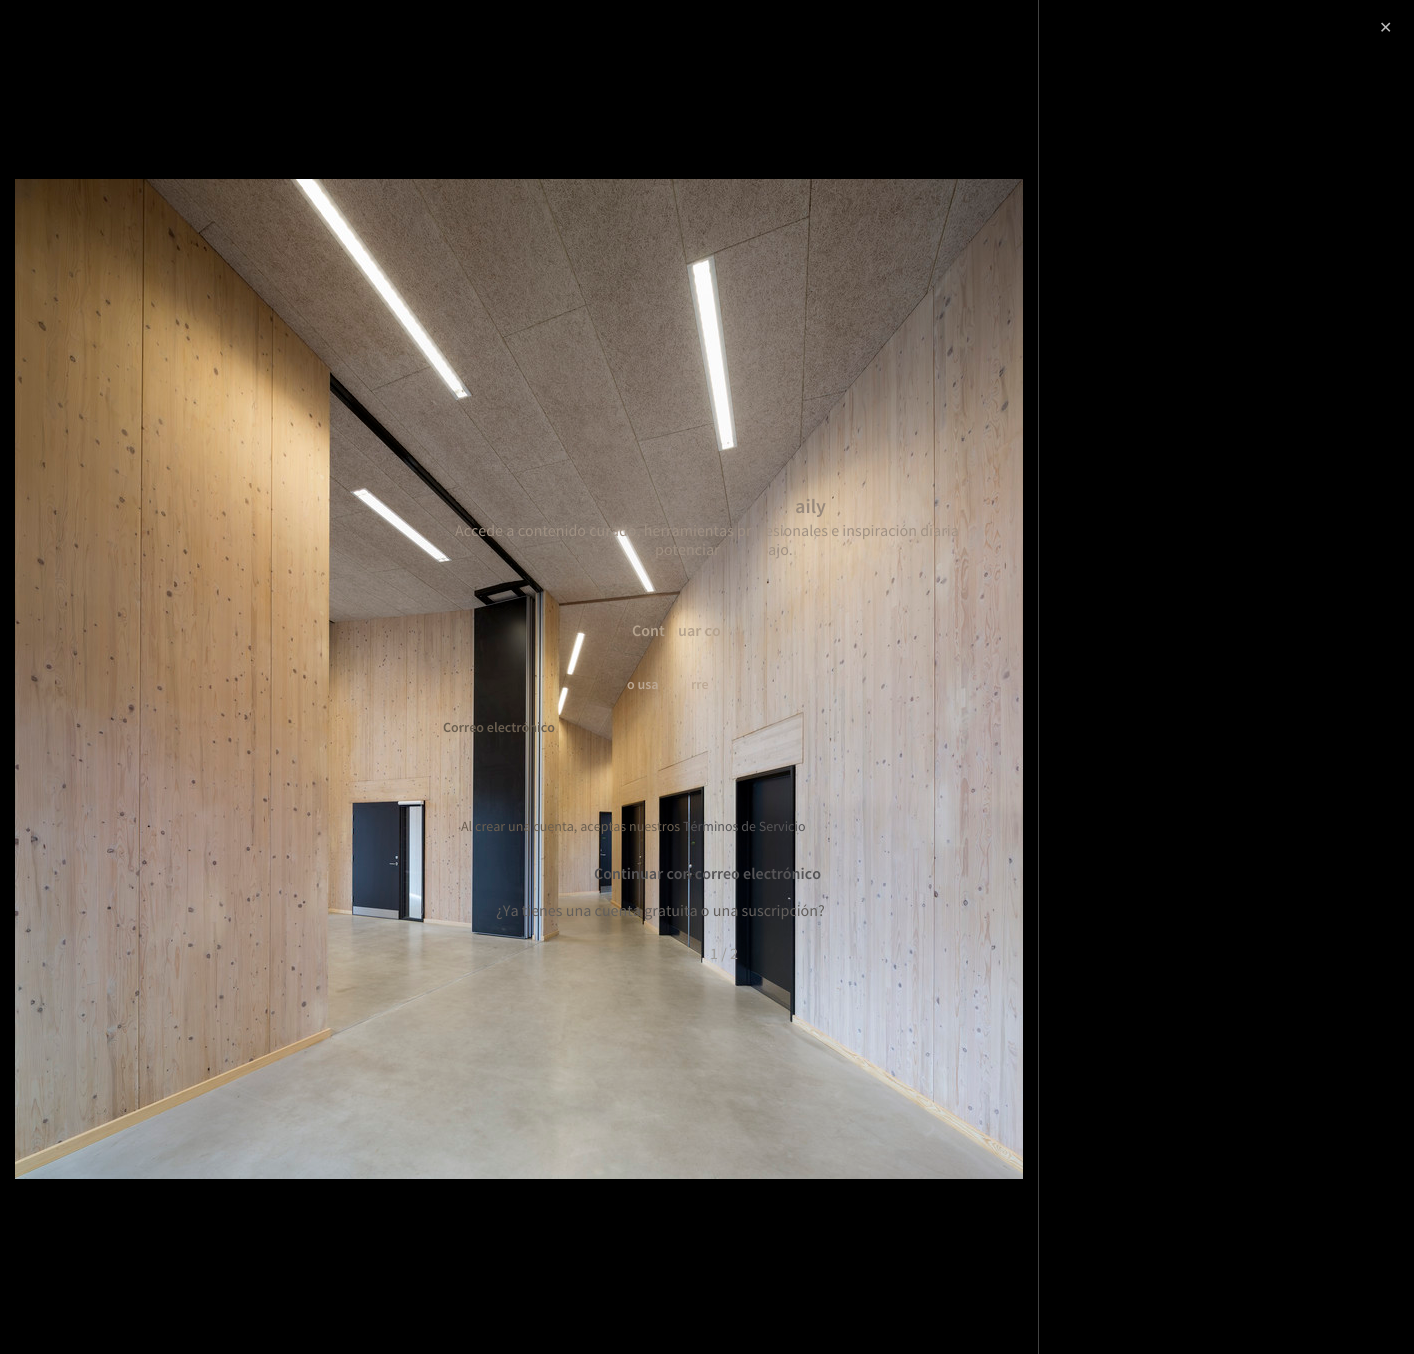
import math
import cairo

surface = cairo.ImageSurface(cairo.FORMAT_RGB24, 1414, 1354)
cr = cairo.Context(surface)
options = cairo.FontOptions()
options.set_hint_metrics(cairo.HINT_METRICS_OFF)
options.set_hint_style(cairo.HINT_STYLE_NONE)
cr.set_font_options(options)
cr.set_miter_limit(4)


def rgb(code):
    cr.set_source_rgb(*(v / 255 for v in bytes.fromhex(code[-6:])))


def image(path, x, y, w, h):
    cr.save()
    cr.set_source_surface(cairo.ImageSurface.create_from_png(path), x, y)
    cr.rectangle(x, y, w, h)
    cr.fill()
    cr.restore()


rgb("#000000")
cr.paint()
rgb("#444444")
cr.rectangle(1038, 0, 1, 1354)
cr.fill()
image("img/1.png", 15, 179, 1008, 1000)
cr.select_font_face("DejaVu Sans")
cr.set_font_size(16)
rgb("#bbbbbb")
cr.move_to(1379, 33)
cr.show_text("✕")
cr.select_font_face("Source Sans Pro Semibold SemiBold")
cr.set_font_size(20)
rgb("#97887b")
cr.move_to(795, 513)
cr.show_text("aily")
cr.select_font_face("Source Sans Pro")
cr.set_font_size(16)
rgb("#9f9082")
for x, y, s in [
    (455, 536, "Accede a contenido curado, herramientas pr"),
    (765, 536, "esionales e inspiración diaria"),
    (655, 555, "potenciar"),
    (768, 555, "ajo."),
]:
    cr.move_to(x, y)
    cr.show_text(s)
cr.select_font_face("Source Sans Pro Semibold SemiBold")
rgb("#b4a18c")
cr.move_to(632, 636)
cr.show_text("Cont")
cr.move_to(678, 636)
cr.show_text("uar co")
cr.set_font_size(14)
rgb("#bca894")
cr.move_to(627, 689)
cr.show_text("o usa")
cr.move_to(691, 689)
cr.show_text("rre")
rgb("#6a5e4f")
cr.move_to(443, 732)
cr.show_text("Correo electrónico")
cr.select_font_face("Source Sans Pro")
cr.move_to(461, 831)
cr.show_text("Al crear una cuenta, aceptas nuestros")
rgb("#555456")
cr.move_to(683, 831)
cr.show_text("Términos de Servicio")
cr.select_font_face("Source Sans Pro Semibold SemiBold")
cr.set_font_size(16)
cr.move_to(594, 879)
cr.show_text("Continuar con correo electrónico")
cr.select_font_face("Source Sans Pro")
rgb("#625e5b")
cr.move_to(496, 916)
cr.show_text("¿Ya tienes una cuenta gratuita o una suscripción?")
rgb("#9c9994")
cr.move_to(710, 959)
cr.show_text("1 / 2")
surface.write_to_png("page.png")
